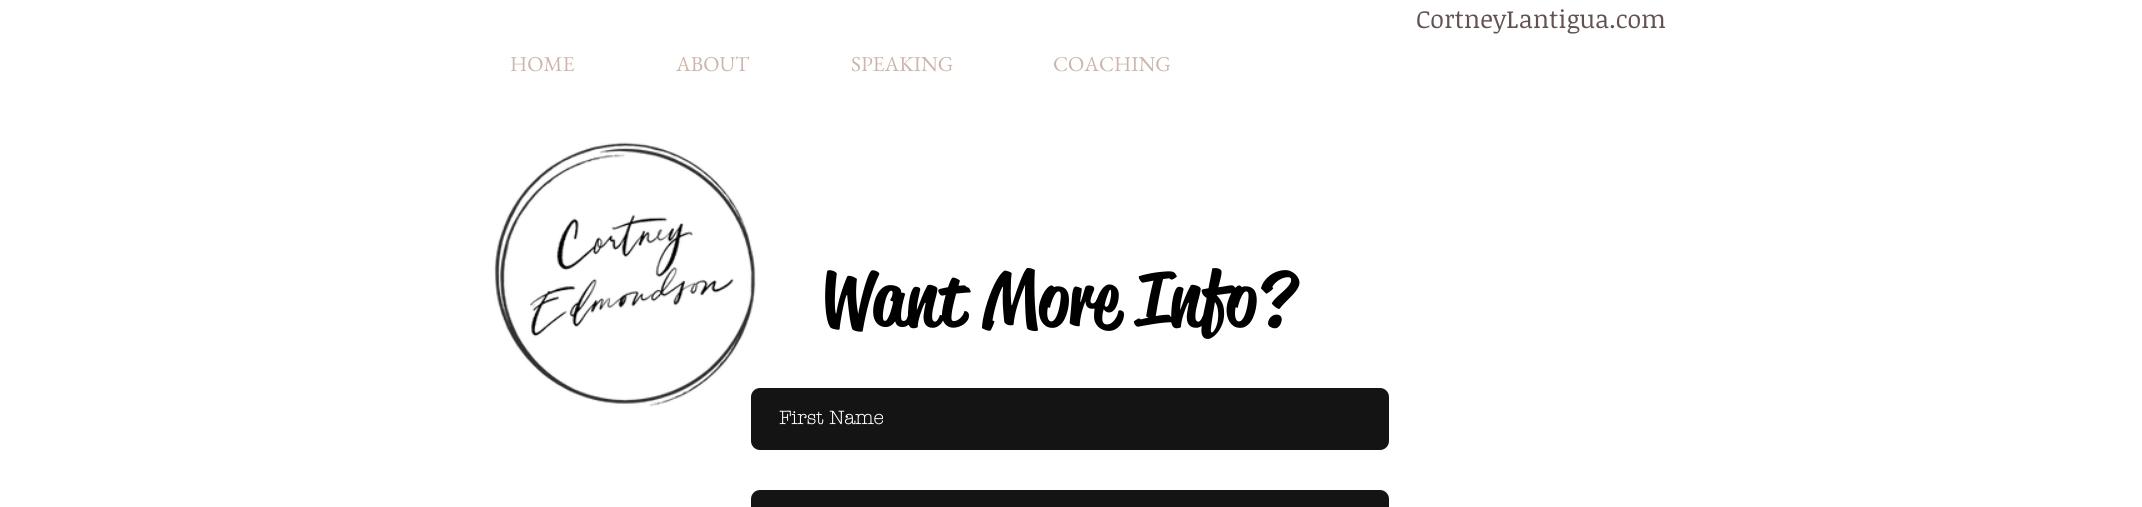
import math
import cairo

surface = cairo.ImageSurface(cairo.FORMAT_RGB24, 2142, 507)
cr = cairo.Context(surface)
options = cairo.FontOptions()
options.set_hint_metrics(cairo.HINT_METRICS_OFF)
options.set_hint_style(cairo.HINT_STYLE_NONE)
cr.set_font_options(options)
cr.set_miter_limit(4)


def rgb(code):
    cr.set_source_rgb(*(v / 255 for v in bytes.fromhex(code[-6:])))


def rrect(x, y, w, h, r):
    cr.new_sub_path()
    for i, (u, v) in enumerate([(x + w - r, y + h - r), (x + r, y + h - r), (x + r, y + r), (x + w - r, y + r)]):
        cr.arc(u, v, r, i * math.pi / 2, (i + 1) * math.pi / 2)
    cr.close_path()


def image(path, x, y, w, h):
    cr.save()
    cr.set_source_surface(cairo.ImageSurface.create_from_png(path), x, y)
    cr.rectangle(x, y, w, h)
    cr.fill()
    cr.restore()


rgb("#ffffff")
cr.paint()
rgb("#141414")
rrect(751, 388, 638, 62, 9)
cr.fill()
image("img/1.png", 494, 142, 262, 265)
rrect(751, 490, 638, 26, 9)
cr.fill()
cr.select_font_face("Noticia Text")
cr.set_font_size(25)
rgb("#635252")
cr.move_to(1416, 28)
cr.show_text("CortneyLantigua.com")
cr.select_font_face("EB Garamond")
cr.set_font_size(21.25)
rgb("#cdb5ab")
for x, y, s in [
    (510, 71, "HOME"),
    (676, 71, "ABOUT"),
    (851, 71, "SPEAKING"),
    (1053, 71, "COACHING"),
]:
    cr.move_to(x, y)
    cr.show_text(s)
cr.select_font_face("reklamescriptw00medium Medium")
cr.set_font_size(75)
rgb("#000000")
cr.move_to(820, 325)
cr.show_text("Want More Info?")
cr.select_font_face("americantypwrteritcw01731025", cairo.FONT_SLANT_NORMAL, cairo.FONT_WEIGHT_BOLD)
cr.set_font_size(18.75)
rgb("#ffffff")
cr.move_to(779, 424)
cr.show_text("First Name")
surface.write_to_png("page.png")
